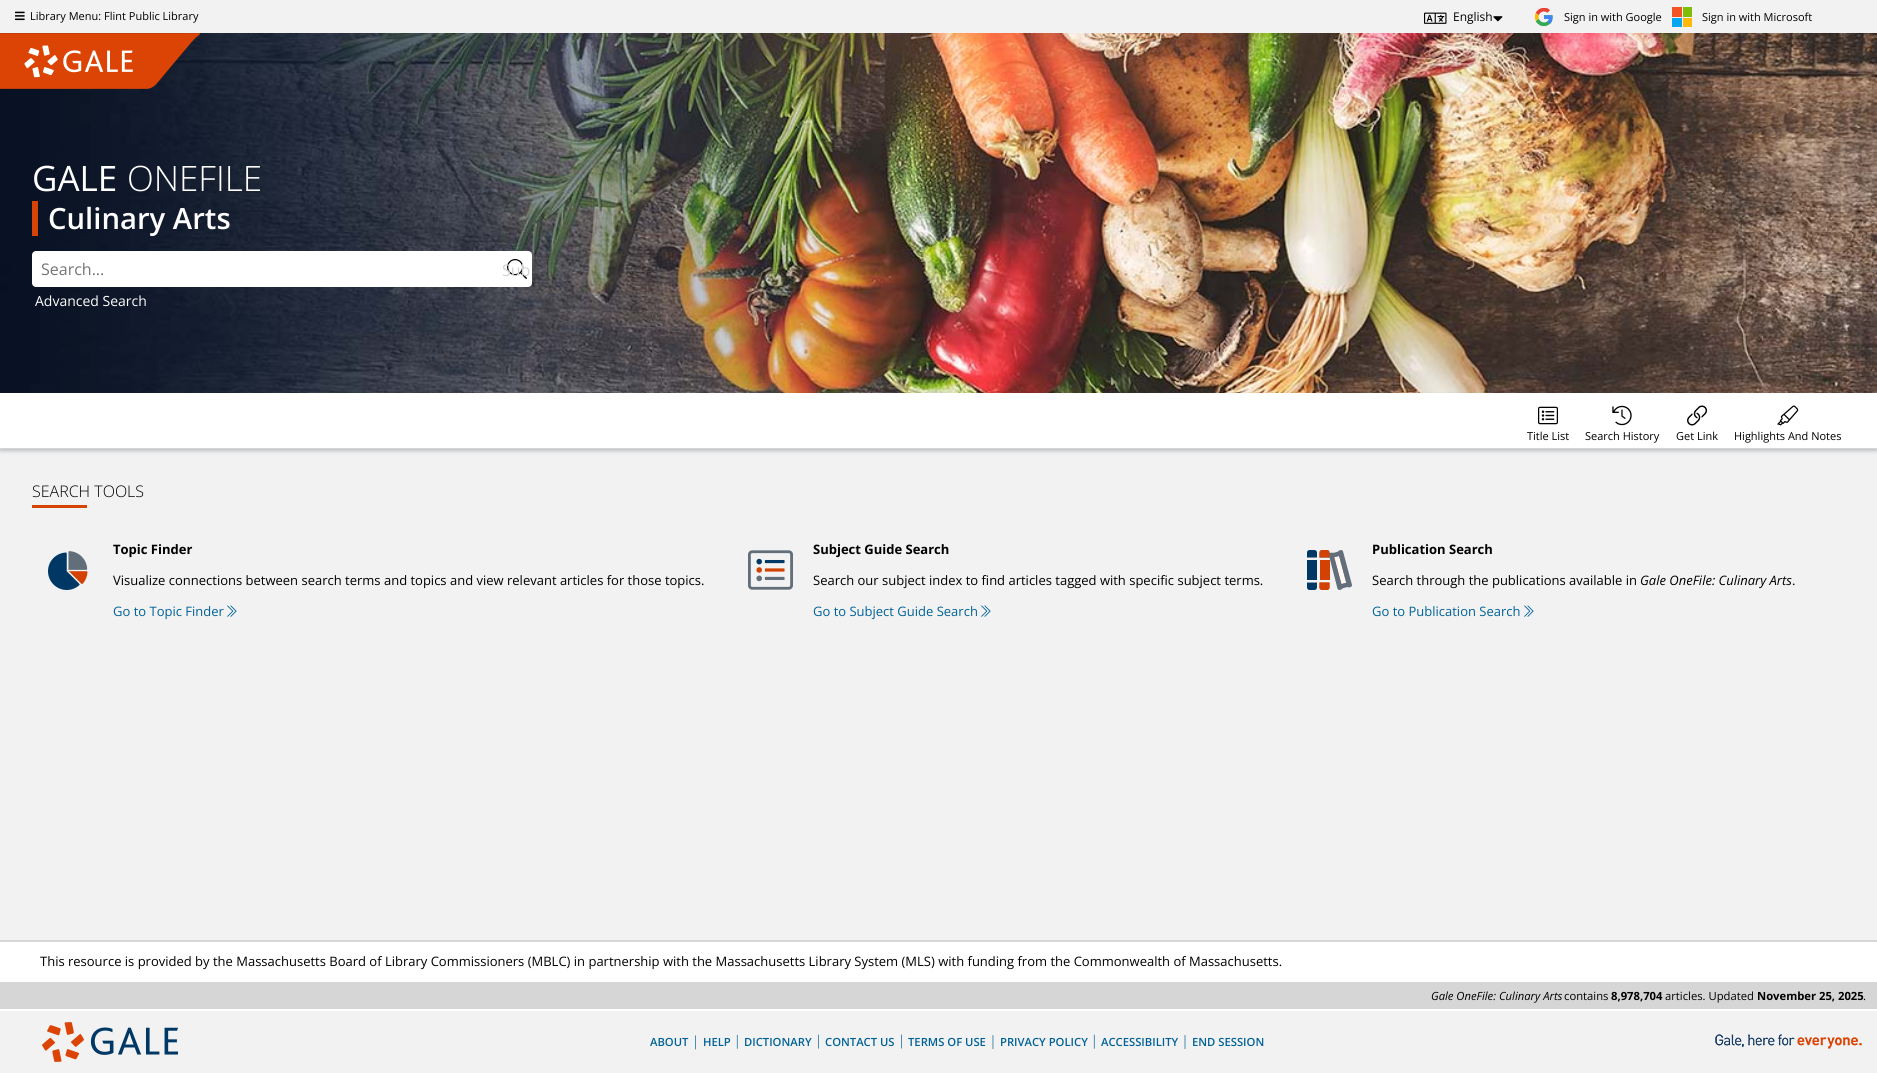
import math
import cairo

surface = cairo.ImageSurface(cairo.FORMAT_RGB24, 1877, 1073)
cr = cairo.Context(surface)
options = cairo.FontOptions()
options.set_hint_metrics(cairo.HINT_METRICS_OFF)
options.set_hint_style(cairo.HINT_STYLE_NONE)
cr.set_font_options(options)
cr.set_miter_limit(4)


def rgb(code):
    cr.set_source_rgb(*(v / 255 for v in bytes.fromhex(code[-6:])))


def rrect(x, y, w, h, r):
    cr.new_sub_path()
    for i, (u, v) in enumerate([(x + w - r, y + h - r), (x + r, y + h - r), (x + r, y + r), (x + w - r, y + r)]):
        cr.arc(u, v, r, i * math.pi / 2, (i + 1) * math.pi / 2)
    cr.close_path()


def soft_shadow(x, y, w, h, r, blur, alpha):
    cr.push_group_with_content(cairo.CONTENT_ALPHA)
    cr.set_operator(cairo.OPERATOR_SOURCE)
    for i in range(15, -16, -2):
        e = blur * i / 6
        if min(w, h) + 2 * e > 0:
            cr.set_source_rgba(0, 0, 0, alpha * math.erfc((i - 1) / 8.5) / 2)
            rrect(x - e, y - e, w + 2 * e, h + 2 * e, max(0, min(r + e + blur * .6, min(w, h) / 2 + e)))
            cr.fill()
    cr.mask(cr.pop_group())


def image(path, x, y, w, h):
    cr.save()
    cr.set_source_surface(cairo.ImageSurface.create_from_png(path), x, y)
    cr.rectangle(x, y, w, h)
    cr.fill()
    cr.restore()


rgb("#f2f2f2")
cr.paint()
image("img/1.png", 15, 11, 10, 10)
image("img/2.png", 1424, 12, 23, 12)
image("img/3.png", 1493, 16, 10, 6)
image("img/4.png", 1534, 7, 19, 20)
for x, y, w, h, color in [
    (1672, 7, 10, 10, "#f35325"),
    (1683, 7, 9, 10, "#81bc06"),
    (1672, 18, 10, 9, "#05a6f0"),
    (1683, 18, 9, 9, "#ffba08"),
]:
    rgb(color)
    cr.rectangle(x, y, w, h)
    cr.fill()
image("img/5.png", 0, 33, 1877, 360)
image("img/6.png", 0, 33, 200, 56)
rgb("#d54405")
cr.rectangle(32, 201, 6, 35)
cr.fill()
rgb("#ffffff")
rrect(32, 251, 500, 36, 4)
cr.fill()
image("img/7.png", 507, 259, 20, 20)
rgb("#4f5a63")
soft_shadow(0, 395, 1877, 56, 0, 2, 0.33)
rgb("#ffffff")
cr.rectangle(0, 393, 1877, 55)
cr.fill()
rgb("#d6d6d6")
cr.rectangle(0, 448, 1877, 1)
cr.fill()
image("img/8.png", 1538, 406, 20, 19)
image("img/9.png", 1612, 405, 20, 21)
image("img/10.png", 1687, 405, 20, 21)
image("img/11.png", 1777, 405, 22, 21)
rgb("#d54405")
cr.rectangle(32, 505, 55, 3)
cr.fill()
image("img/12.png", 48, 551, 40, 39)
image("img/13.png", 227, 605, 10, 12)
image("img/14.png", 748, 550, 45, 40)
image("img/13.png", 981, 605, 10, 12)
image("img/15.png", 1307, 550, 45, 40)
image("img/13.png", 1524, 605, 10, 12)
for x, y, w, h, color in [
    (0, 942, 1877, 40, "#ffffff"),
    (0, 940, 1877, 2, "#d6d6d6"),
    (0, 982, 1877, 27, "#d6d6d6"),
    (0, 1009, 1877, 2, "#ffffff"),
]:
    rgb(color)
    cr.rectangle(x, y, w, h)
    cr.fill()
image("img/16.png", 42, 1022, 136, 40)
image("img/17.png", 695, 1035, 1, 15)
image("img/18.png", 736, 1034, 2, 15)
image("img/19.png", 818, 1034, 1, 15)
image("img/20.png", 901, 1034, 1, 15)
image("img/21.png", 992, 1035, 2, 14)
image("img/22.png", 1093, 1034, 2, 15)
image("img/23.png", 1184, 1035, 2, 14)
image("img/24.png", 1715, 1034, 147, 15)
cr.select_font_face("Open Sans")
cr.set_font_size(11)
rgb("#000000")
cr.move_to(30, 20)
cr.show_text("Library Menu: Flint Public Library")
cr.set_font_size(12)
cr.move_to(1453, 21)
cr.show_text("English")
cr.set_font_size(11)
cr.move_to(1564, 21)
cr.show_text("Sign in with Google")
cr.move_to(1702, 21)
cr.show_text("Sign in with Microsoft")
cr.set_font_size(35)
rgb("#ffffff")
cr.move_to(32, 191)
cr.show_text("GALE")
cr.select_font_face("Open Sans Light")
cr.move_to(127, 191)
cr.show_text("ONEFILE")
cr.select_font_face("Open Sans SemiBold")
cr.set_font_size(29.25)
cr.move_to(48, 229)
cr.show_text("Culinary Arts")
cr.select_font_face("Open Sans")
cr.set_font_size(16)
rgb("#757575")
cr.move_to(41, 275)
cr.show_text("Search...")
rgb("#d2d2d2")
cr.move_to(502, 276)
cr.show_text("Sub")
cr.set_font_size(14)
rgb("#ffffff")
cr.move_to(35, 306)
cr.show_text("Advanced Search")
cr.set_font_size(11)
rgb("#000000")
for x, y, s in [
    (1527, 440, "Title List"),
    (1585, 440, "Search History"),
    (1676, 440, "Get Link"),
    (1734, 440, "Highlights And Notes"),
]:
    cr.move_to(x, y)
    cr.show_text(s)
cr.select_font_face("Open Sans Light")
cr.set_font_size(16)
cr.move_to(32, 497)
cr.show_text("SEARCH TOOLS")
cr.select_font_face("Open Sans", cairo.FONT_SLANT_NORMAL, cairo.FONT_WEIGHT_BOLD)
cr.set_font_size(13)
cr.move_to(113, 554)
cr.show_text("Topic Finder")
cr.select_font_face("Open Sans")
cr.move_to(113, 585)
cr.show_text("Visualize connections between search terms and topics and view relevant articles for those topics.")
rgb("#006298")
cr.move_to(113, 616)
cr.show_text("Go to Topic Finder")
cr.select_font_face("Open Sans", cairo.FONT_SLANT_NORMAL, cairo.FONT_WEIGHT_BOLD)
rgb("#000000")
cr.move_to(813, 554)
cr.show_text("Subject Guide Search")
cr.select_font_face("Open Sans")
cr.move_to(813, 585)
cr.show_text("Search our subject index to find articles tagged with specific subject terms.")
rgb("#006298")
cr.move_to(813, 616)
cr.show_text("Go to Subject Guide Search")
cr.select_font_face("Open Sans", cairo.FONT_SLANT_NORMAL, cairo.FONT_WEIGHT_BOLD)
rgb("#000000")
cr.move_to(1372, 554)
cr.show_text("Publication Search")
cr.select_font_face("Open Sans")
cr.move_to(1372, 585)
cr.show_text("Search through the publications available in")
cr.select_font_face("Open Sans", cairo.FONT_SLANT_ITALIC)
cr.move_to(1640, 585)
cr.show_text("Gale OneFile: Culinary Arts")
cr.select_font_face("Open Sans")
cr.move_to(1792, 585)
cr.show_text(".")
rgb("#006298")
cr.move_to(1372, 616)
cr.show_text("Go to Publication Search")
rgb("#000000")
cr.move_to(40, 966)
cr.show_text("This resource is provided by the Massachusetts Board of Library Commissioners (MBLC) in partnership with the Massachusetts Library System (MLS) with funding from the Commonwealth of Massachusetts.")
cr.select_font_face("Open Sans", cairo.FONT_SLANT_ITALIC)
cr.set_font_size(11.25)
cr.move_to(1431, 1000)
cr.show_text("Gale OneFile: Culinary Arts")
cr.select_font_face("Open Sans")
cr.move_to(1564, 1000)
cr.show_text("contains")
cr.select_font_face("Open Sans", cairo.FONT_SLANT_NORMAL, cairo.FONT_WEIGHT_BOLD)
cr.move_to(1611, 1000)
cr.show_text("8,978,704")
cr.select_font_face("Open Sans")
cr.move_to(1665, 1000)
cr.show_text("articles. Updated")
cr.select_font_face("Open Sans", cairo.FONT_SLANT_NORMAL, cairo.FONT_WEIGHT_BOLD)
cr.move_to(1757, 1000)
cr.show_text("November 25, 2025")
cr.select_font_face("Open Sans")
cr.move_to(1863, 1000)
cr.show_text(".")
cr.select_font_face("Open Sans SemiBold")
rgb("#006298")
for x, y, s in [
    (650, 1046, "ABOUT"),
    (703, 1046, "HELP"),
    (744, 1046, "DICTIONARY"),
    (825, 1046, "CONTACT US"),
    (908, 1046, "TERMS OF USE"),
    (1000, 1046, "PRIVACY POLICY"),
    (1101, 1046, "ACCESSIBILITY"),
    (1192, 1046, "END SESSION"),
]:
    cr.move_to(x, y)
    cr.show_text(s)
surface.write_to_png("page.png")
